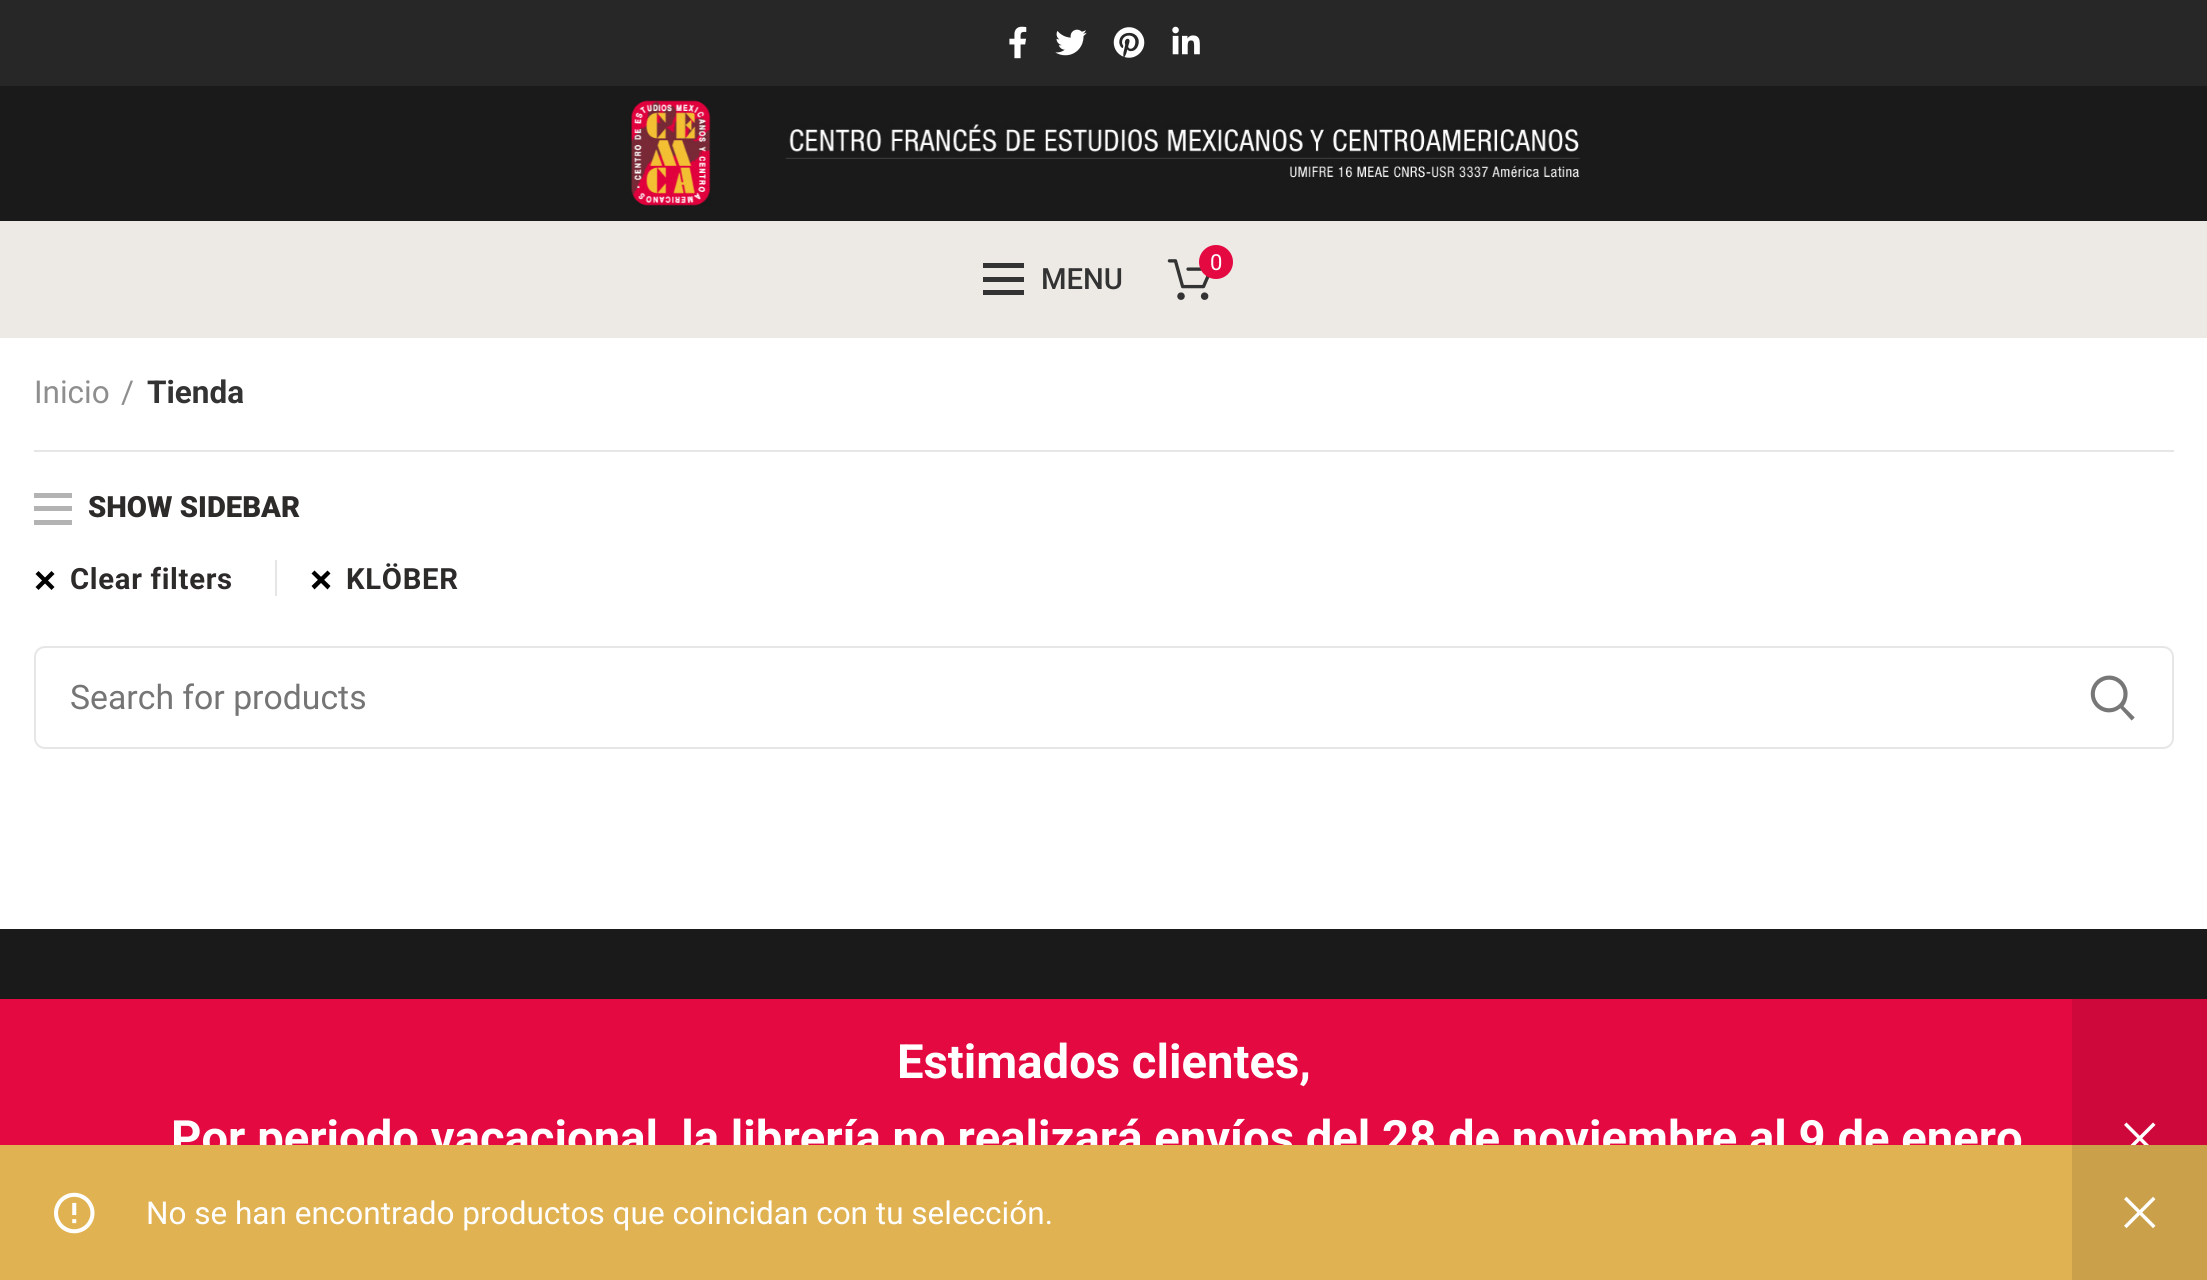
import math
import cairo

surface = cairo.ImageSurface(cairo.FORMAT_RGB24, 2207, 1280)
cr = cairo.Context(surface)
options = cairo.FontOptions()
options.set_hint_metrics(cairo.HINT_METRICS_OFF)
options.set_hint_style(cairo.HINT_STYLE_NONE)
cr.set_font_options(options)
cr.set_miter_limit(4)


def rgb(code):
    cr.set_source_rgb(*(v / 255 for v in bytes.fromhex(code[-6:])))


def tracked(x, y, s, letter, word):
    cr.move_to(x, y)
    for ch in s:
        cr.show_text(ch)
        cr.rel_move_to(letter + word * (ch == ' '), 0)


def rrect(x, y, w, h, r):
    cr.new_sub_path()
    for i, (u, v) in enumerate([(x + w - r, y + h - r), (x + r, y + h - r), (x + r, y + r), (x + w - r, y + r)]):
        cr.arc(u, v, r, i * math.pi / 2, (i + 1) * math.pi / 2)
    cr.close_path()


def image(path, x, y, w, h):
    cr.save()
    cr.set_source_surface(cairo.ImageSurface.create_from_png(path), x, y)
    cr.rectangle(x, y, w, h)
    cr.fill()
    cr.restore()


rgb("#ffffff")
cr.paint()
rgb("#272727")
cr.rectangle(0, 0, 2207, 86)
cr.fill()
image("img/1.png", 1009, 26, 18, 33)
image("img/2.png", 1055, 29, 32, 27)
image("img/3.png", 1113, 27, 32, 31)
image("img/4.png", 1172, 26, 28, 29)
rgb("#1a1a1a")
cr.rectangle(0, 86, 2207, 135)
cr.fill()
image("img/5.png", 631, 100, 949, 106)
rgb("#edeae5")
cr.rectangle(0, 221, 2207, 117)
cr.fill()
image("img/6.png", 1167, 259, 43, 41)
rgb("#e50942")
cr.arc(1216, 262, 17, 0, 2 * math.pi)
cr.fill()
for x, y, w, h, color in [
    (983, 277, 41, 5, "#333333"),
    (983, 263, 41, 5, "#333333"),
    (983, 290, 41, 5, "#333333"),
    (34, 450, 2140, 2, "#e6e6e6"),
    (34, 506, 38, 5, "#b3b3b3"),
    (34, 493, 38, 5, "#b3b3b3"),
    (34, 520, 38, 5, "#b3b3b3"),
    (275, 560, 2, 36, "#e6e6e6"),
]:
    rgb(color)
    cr.rectangle(x, y, w, h)
    cr.fill()
rgb("#000000")
cr.new_path()
cr.move_to(38.5, 571)
cr.line_to(54.5, 587)
cr.line_to(51.5, 590)
cr.line_to(35.5, 574)
cr.close_path()
cr.fill()
cr.new_path()
cr.move_to(35.5, 587)
cr.line_to(51.5, 571)
cr.line_to(54.5, 574)
cr.line_to(38.5, 590)
cr.close_path()
cr.fill()
cr.new_path()
cr.move_to(314.5, 570.5)
cr.line_to(330.5, 586)
cr.line_to(327.5, 589.5)
cr.line_to(311.5, 573.5)
cr.close_path()
cr.fill()
cr.new_path()
cr.move_to(311.5, 586)
cr.line_to(327.5, 570.5)
cr.line_to(330.5, 573.5)
cr.line_to(314.5, 589.5)
cr.close_path()
cr.fill()
rrect(35, 647, 2138, 101, 10)
rgb("#e6e6e6")
cr.stroke()
image("img/7.png", 2090, 675, 45, 46)
rgb("#caa04a")
cr.rectangle(2072, 1145, 135, 135)
cr.fill()
image("img/9.png", 2124, 1196, 32, 33)
for x, y, w, h, color in [
    (0, 929, 2207, 70, "#1a1a1a"),
    (0, 999, 2072, 146, "#e50942"),
    (2072, 999, 135, 146, "#ce083b"),
]:
    rgb(color)
    cr.rectangle(x, y, w, h)
    cr.fill()
image("img/10.png", 2124, 1122, 32, 23)
cr.select_font_face("Roboto")
cr.set_font_size(22)
rgb("#ffffff")
cr.move_to(1210, 270)
cr.show_text("0")
cr.select_font_face("Roboto Medium")
cr.set_font_size(29.25)
rgb("#333333")
cr.move_to(1041, 289)
cr.show_text("MENU")
cr.select_font_face("Roboto")
cr.set_font_size(31.5)
rgb("#8e8e8e")
cr.move_to(34, 403)
cr.show_text("Inicio")
cr.move_to(121, 403)
cr.show_text("/")
cr.select_font_face("Roboto", cairo.FONT_SLANT_NORMAL, cairo.FONT_WEIGHT_BOLD)
rgb("#333333")
cr.move_to(147, 403)
cr.show_text("Tienda")
cr.select_font_face("Roboto Black")
cr.set_font_size(29.25)
rgb("#2d2a2a")
cr.move_to(88, 517)
cr.show_text("SHOW SIDEBAR")
cr.select_font_face("Roboto", cairo.FONT_SLANT_NORMAL, cairo.FONT_WEIGHT_BOLD)
tracked(70, 589, "Clear filters", 0.7, 0)
tracked(346, 589, "KLÖBER", 0.7, 0)
cr.select_font_face("Roboto")
cr.set_font_size(33.75)
rgb("#757575")
cr.move_to(70, 709)
cr.show_text("Search for products")
cr.select_font_face("Roboto", cairo.FONT_SLANT_NORMAL, cairo.FONT_WEIGHT_BOLD)
cr.set_font_size(47.25)
rgb("#ffffff")
cr.move_to(897, 1078)
cr.show_text("Estimados clientes,")
cr.move_to(171, 1154)
cr.show_text("Por periodo vacacional, la librería no realizará envíos del 28 de noviembre al 9 de enero")
rgb("#e0b252")
cr.rectangle(0, 1145, 2072, 135)
cr.fill()
image("img/8.png", 54, 1192, 41, 42)
cr.select_font_face("Roboto")
cr.set_font_size(31.5)
rgb("#ffffff")
cr.move_to(146, 1224)
cr.show_text("No se han encontrado productos que coincidan con tu selección.")
surface.write_to_png("page.png")
